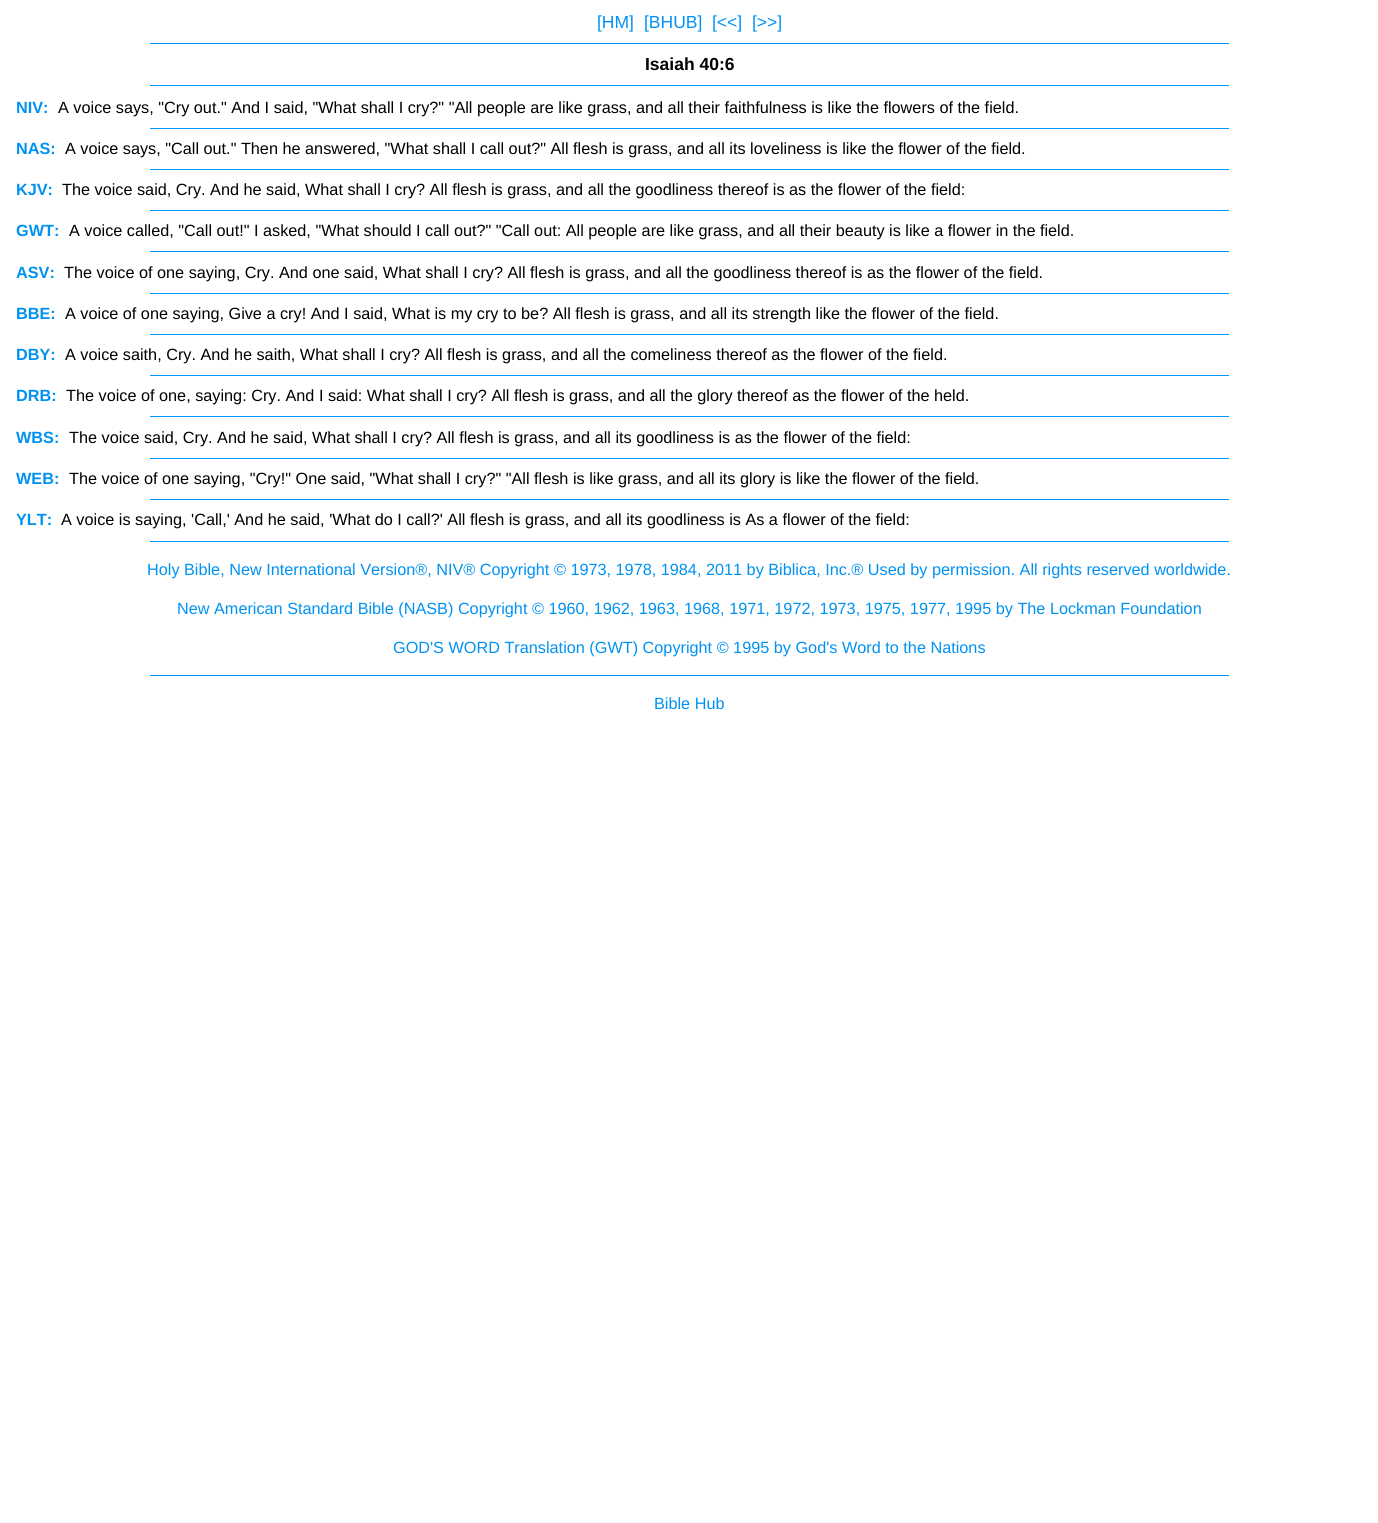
import math
import cairo

surface = cairo.ImageSurface(cairo.FORMAT_RGB24, 1378, 1523)
cr = cairo.Context(surface)
options = cairo.FontOptions()
options.set_hint_metrics(cairo.HINT_METRICS_OFF)
options.set_hint_style(cairo.HINT_STYLE_NONE)
cr.set_font_options(options)
cr.set_miter_limit(4)


def rgb(code):
    cr.set_source_rgb(*(v / 255 for v in bytes.fromhex(code[-6:])))


rgb("#ffffff")
cr.paint()
for x, y, w, h, color in [
    (150, 43, 1079, 1, "#0099ff"),
    (150, 85, 1079, 1, "#0099ff"),
    (150, 128, 1079, 1, "#0099ff"),
    (150, 169, 1079, 1, "#0099ff"),
    (150, 210, 1079, 1, "#0099ff"),
    (150, 251, 1079, 1, "#0099ff"),
    (150, 293, 1079, 1, "#0099ff"),
    (150, 334, 1079, 1, "#0099ff"),
    (150, 375, 1079, 1, "#0099ff"),
    (150, 416, 1079, 1, "#0099ff"),
    (150, 458, 1079, 1, "#0099ff"),
    (150, 499, 1079, 1, "#0099ff"),
    (150, 541, 1079, 1, "#0099ff"),
    (150, 675, 1079, 1, "#0099ff"),
]:
    rgb(color)
    cr.rectangle(x, y, w, h)
    cr.fill()
cr.select_font_face("Liberation Sans")
cr.set_font_size(17.5)
rgb("#0092f2")
for x, y, s in [
    (597, 28, "[HM]"),
    (644, 28, "[BHUB]"),
    (712, 28, "[<<]"),
    (752, 28, "[>>]"),
]:
    cr.move_to(x, y)
    cr.show_text(s)
cr.select_font_face("Liberation Sans", cairo.FONT_SLANT_NORMAL, cairo.FONT_WEIGHT_BOLD)
rgb("#000000")
cr.move_to(645, 70)
cr.show_text("Isaiah 40:6")
cr.set_font_size(16.25)
rgb("#0092f2")
cr.move_to(16, 113)
cr.show_text("NIV:")
cr.select_font_face("Liberation Sans")
rgb("#000000")
cr.move_to(58, 113)
cr.show_text("A voice says, \"Cry out.\" And I said, \"What shall I cry?\" \"All people are like grass, and all their faithfulness is like the flowers of the field.")
cr.select_font_face("Liberation Sans", cairo.FONT_SLANT_NORMAL, cairo.FONT_WEIGHT_BOLD)
rgb("#0092f2")
cr.move_to(16, 154)
cr.show_text("NAS:")
cr.select_font_face("Liberation Sans")
rgb("#000000")
cr.move_to(65, 154)
cr.show_text("A voice says, \"Call out.\" Then he answered, \"What shall I call out?\" All flesh is grass, and all its loveliness is like the flower of the field.")
cr.select_font_face("Liberation Sans", cairo.FONT_SLANT_NORMAL, cairo.FONT_WEIGHT_BOLD)
rgb("#0092f2")
cr.move_to(16, 195)
cr.show_text("KJV:")
cr.select_font_face("Liberation Sans")
rgb("#000000")
cr.move_to(62, 195)
cr.show_text("The voice said, Cry. And he said, What shall I cry? All flesh is grass, and all the goodliness thereof is as the flower of the field:")
cr.select_font_face("Liberation Sans", cairo.FONT_SLANT_NORMAL, cairo.FONT_WEIGHT_BOLD)
rgb("#0092f2")
cr.move_to(16, 236)
cr.show_text("GWT:")
cr.select_font_face("Liberation Sans")
rgb("#000000")
cr.move_to(69, 236)
cr.show_text("A voice called, \"Call out!\" I asked, \"What should I call out?\" \"Call out: All people are like grass, and all their beauty is like a flower in the field.")
cr.select_font_face("Liberation Sans", cairo.FONT_SLANT_NORMAL, cairo.FONT_WEIGHT_BOLD)
rgb("#0092f2")
cr.move_to(16, 278)
cr.show_text("ASV:")
cr.select_font_face("Liberation Sans")
rgb("#000000")
cr.move_to(64, 278)
cr.show_text("The voice of one saying, Cry. And one said, What shall I cry? All flesh is grass, and all the goodliness thereof is as the flower of the field.")
cr.select_font_face("Liberation Sans", cairo.FONT_SLANT_NORMAL, cairo.FONT_WEIGHT_BOLD)
rgb("#0092f2")
cr.move_to(16, 319)
cr.show_text("BBE:")
cr.select_font_face("Liberation Sans")
rgb("#000000")
cr.move_to(65, 319)
cr.show_text("A voice of one saying, Give a cry! And I said, What is my cry to be? All flesh is grass, and all its strength like the flower of the field.")
cr.select_font_face("Liberation Sans", cairo.FONT_SLANT_NORMAL, cairo.FONT_WEIGHT_BOLD)
rgb("#0092f2")
cr.move_to(16, 360)
cr.show_text("DBY:")
cr.select_font_face("Liberation Sans")
rgb("#000000")
cr.move_to(65, 360)
cr.show_text("A voice saith, Cry. And he saith, What shall I cry? All flesh is grass, and all the comeliness thereof as the flower of the field.")
cr.select_font_face("Liberation Sans", cairo.FONT_SLANT_NORMAL, cairo.FONT_WEIGHT_BOLD)
rgb("#0092f2")
cr.move_to(16, 401)
cr.show_text("DRB:")
cr.select_font_face("Liberation Sans")
rgb("#000000")
cr.move_to(66, 401)
cr.show_text("The voice of one, saying: Cry. And I said: What shall I cry? All flesh is grass, and all the glory thereof as the flower of the held.")
cr.select_font_face("Liberation Sans", cairo.FONT_SLANT_NORMAL, cairo.FONT_WEIGHT_BOLD)
rgb("#0092f2")
cr.move_to(16, 443)
cr.show_text("WBS:")
cr.select_font_face("Liberation Sans")
rgb("#000000")
cr.move_to(69, 443)
cr.show_text("The voice said, Cry. And he said, What shall I cry? All flesh is grass, and all its goodliness is as the flower of the field:")
cr.select_font_face("Liberation Sans", cairo.FONT_SLANT_NORMAL, cairo.FONT_WEIGHT_BOLD)
rgb("#0092f2")
cr.move_to(16, 484)
cr.show_text("WEB:")
cr.select_font_face("Liberation Sans")
rgb("#000000")
cr.move_to(69, 484)
cr.show_text("The voice of one saying, \"Cry!\" One said, \"What shall I cry?\" \"All flesh is like grass, and all its glory is like the flower of the field.")
cr.select_font_face("Liberation Sans", cairo.FONT_SLANT_NORMAL, cairo.FONT_WEIGHT_BOLD)
rgb("#0092f2")
cr.move_to(16, 525)
cr.show_text("YLT:")
cr.select_font_face("Liberation Sans")
rgb("#000000")
cr.move_to(61, 525)
cr.show_text("A voice is saying, 'Call,' And he said, 'What do I call?' All flesh is grass, and all its goodliness is As a flower of the field:")
rgb("#0092f2")
for x, y, s in [
    (147, 575, "Holy Bible, New International Version®, NIV® Copyright © 1973, 1978, 1984, 2011 by Biblica, Inc.® Used by permission. All rights reserved worldwide."),
    (177, 614, "New American Standard Bible (NASB) Copyright © 1960, 1962, 1963, 1968, 1971, 1972, 1973, 1975, 1977, 1995 by The Lockman Foundation"),
    (393, 653, "GOD'S WORD Translation (GWT) Copyright © 1995 by God's Word to the Nations"),
    (654, 709, "Bible Hub"),
]:
    cr.move_to(x, y)
    cr.show_text(s)
surface.write_to_png("page.png")
